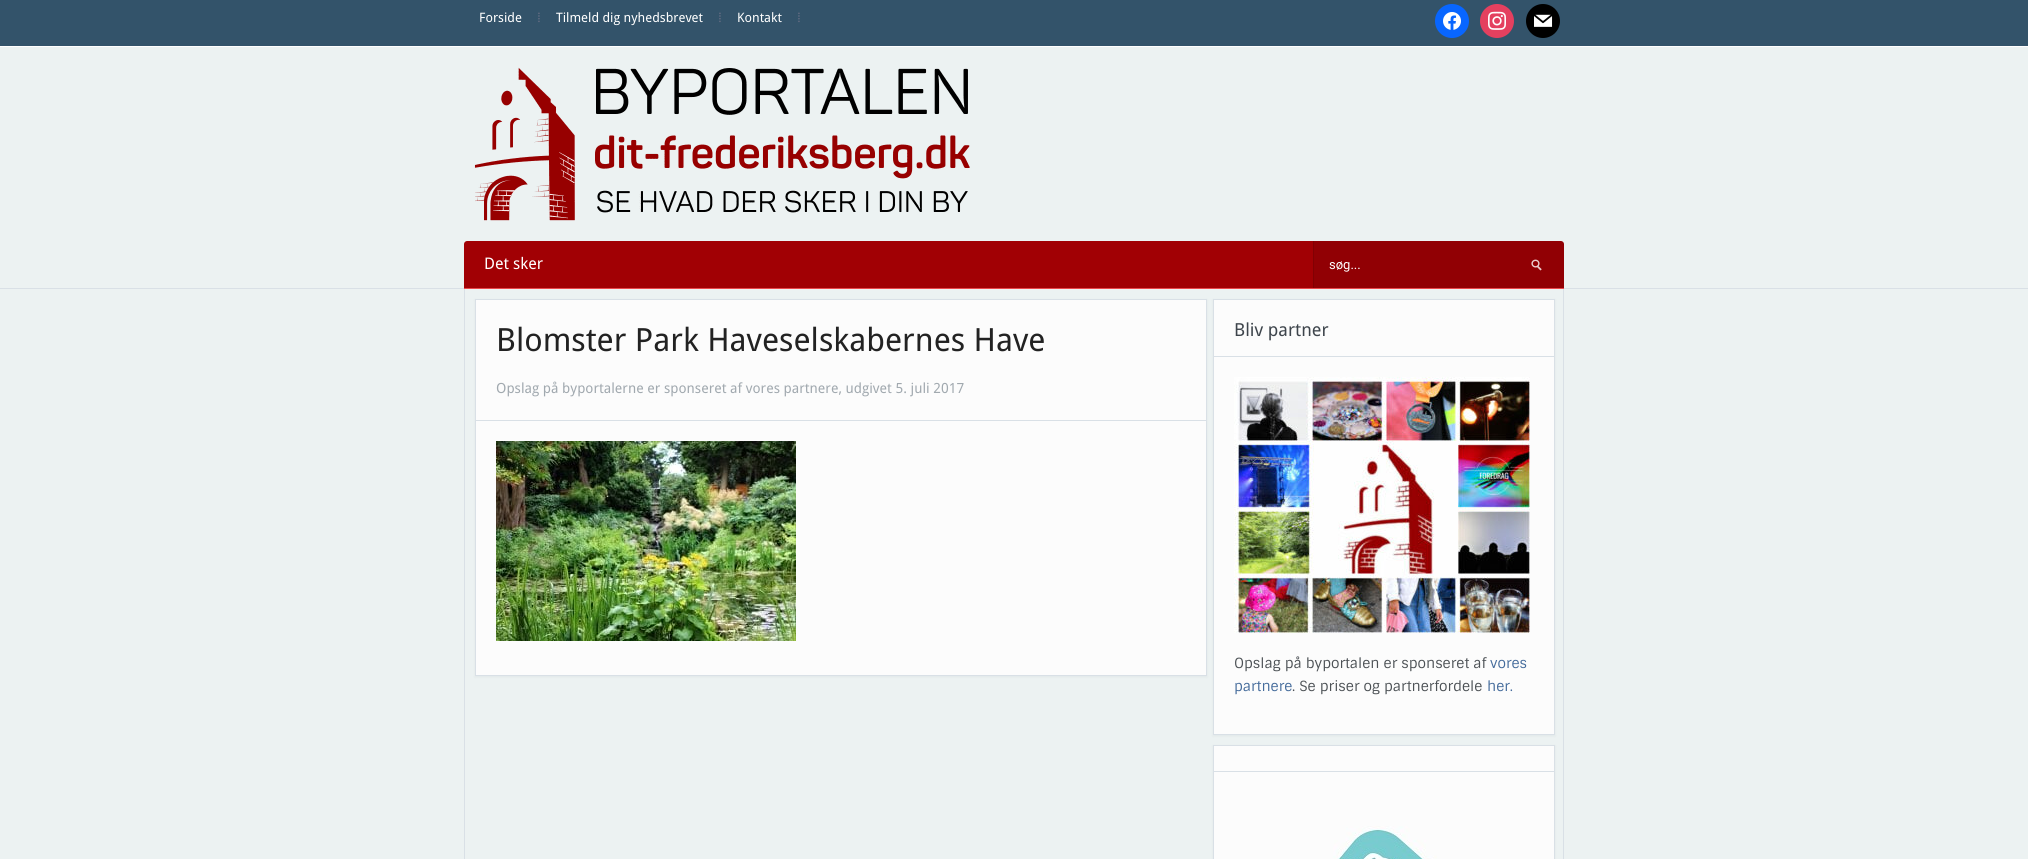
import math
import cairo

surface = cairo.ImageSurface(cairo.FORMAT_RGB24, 2028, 859)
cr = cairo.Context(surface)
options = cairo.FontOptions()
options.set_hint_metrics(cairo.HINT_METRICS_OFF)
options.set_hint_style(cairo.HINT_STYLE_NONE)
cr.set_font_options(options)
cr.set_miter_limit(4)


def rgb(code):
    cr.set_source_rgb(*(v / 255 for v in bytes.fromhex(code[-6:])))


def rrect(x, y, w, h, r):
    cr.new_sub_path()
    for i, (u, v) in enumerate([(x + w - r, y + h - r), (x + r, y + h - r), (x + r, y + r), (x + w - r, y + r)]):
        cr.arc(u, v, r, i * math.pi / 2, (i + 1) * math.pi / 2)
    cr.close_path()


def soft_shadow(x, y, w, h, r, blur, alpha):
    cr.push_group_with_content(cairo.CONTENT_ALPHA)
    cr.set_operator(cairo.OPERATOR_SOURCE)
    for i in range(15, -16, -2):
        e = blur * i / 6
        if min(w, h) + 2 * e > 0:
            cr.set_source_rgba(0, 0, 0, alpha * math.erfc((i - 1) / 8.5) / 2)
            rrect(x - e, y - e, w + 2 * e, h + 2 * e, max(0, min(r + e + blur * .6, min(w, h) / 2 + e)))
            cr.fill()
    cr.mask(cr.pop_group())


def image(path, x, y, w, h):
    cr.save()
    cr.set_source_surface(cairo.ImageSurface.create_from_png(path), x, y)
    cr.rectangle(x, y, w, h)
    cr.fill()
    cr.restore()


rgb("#ecf2f2")
cr.paint()
for x, y, w, h, color in [
    (0, 288, 2028, 1, "#d9e0e6"),
    (0, 0, 2028, 46, "#33536a"),
    (0, 46, 2028, 1, "#ffffff"),
]:
    rgb(color)
    cr.rectangle(x, y, w, h)
    cr.fill()
rgb("#0866ff")
cr.arc(1452, 21, 17, 0, 2 * math.pi)
cr.fill()
image("img/1.png", 1443, 12, 18, 18)
rgb("#e4405f")
cr.arc(1497, 21, 17, 0, 2 * math.pi)
cr.fill()
image("img/2.png", 1488, 11, 18, 19)
rgb("#000000")
cr.arc(1543, 21, 17, 0, 2 * math.pi)
cr.fill()
image("img/3.png", 1534, 14, 19, 13)
image("img/4.png", 474, 67, 496, 154)
rgb("#a10004")
cr.new_path()
cr.move_to(467, 241)
cr.line_to(1561, 241)
cr.curve_to(1562.5, 241, 1564, 242.5, 1564, 244)
cr.line_to(1564, 289)
cr.line_to(464, 289)
cr.line_to(464, 244)
cr.curve_to(464, 242.5, 465.5, 241, 467, 241)
cr.close_path()
cr.fill()
rgb("#e9484c")
cr.rectangle(464, 288, 1100, 1)
cr.fill()
rgb("#810003")
cr.rectangle(1313, 241, 1, 47)
cr.fill()
cr.set_source_rgba(0, 0, 0, 0.1)
cr.new_path()
cr.move_to(1314, 241)
cr.line_to(1561, 241)
cr.curve_to(1562.5, 241, 1564, 242.5, 1564, 244)
cr.line_to(1564, 288)
cr.line_to(1314, 288)
cr.close_path()
cr.fill()
image("img/5.png", 1531, 259, 11, 12)
rgb("#d9e0e6")
cr.set_fill_rule(cairo.FILL_RULE_EVEN_ODD)
cr.new_path()
cr.move_to(464, 289)
cr.line_to(1564, 289)
cr.line_to(1564, 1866)
cr.curve_to(1564, 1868, 1563, 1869, 1561, 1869)
cr.line_to(467, 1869)
cr.curve_to(465, 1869, 464, 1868, 464, 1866)
cr.close_path()
cr.move_to(465, 289)
cr.line_to(1563, 289)
cr.line_to(1563, 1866)
cr.curve_to(1563, 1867, 1562, 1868, 1561, 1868)
cr.line_to(467, 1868)
cr.curve_to(466, 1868, 465, 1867, 465, 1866)
cr.close_path()
cr.fill()
rgb("#4a5f74")
soft_shadow(475, 300, 732, 377, 0, 1.5, 0.08)
rgb("#fcfcfc")
cr.rectangle(475.5, 299.5, 731, 376)
cr.fill_preserve()
rgb("#d9e0e6")
cr.set_line_width(1)
cr.stroke()
cr.rectangle(476, 420, 730, 1)
cr.fill()
image("img/6.png", 496, 441, 300, 200)
rgb("#4a5f74")
soft_shadow(1213, 300, 342, 436, 0, 1.5, 0.08)
rgb("#fcfcfc")
cr.rectangle(1213.5, 299.5, 341, 435)
cr.fill_preserve()
rgb("#d9e0e6")
cr.stroke()
cr.rectangle(1214, 356, 340, 1)
cr.fill()
image("img/7.png", 1234, 377, 296, 256)
rgb("#4a5f74")
soft_shadow(1213, 746, 342, 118, 0, 1.5, 0.08)
rgb("#fcfcfc")
cr.rectangle(1213.5, 745.5, 341, 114)
cr.fill_preserve()
rgb("#d9e0e6")
cr.stroke()
cr.rectangle(1214, 771, 340, 1)
cr.fill()
image("img/8.png", 1333, 826, 104, 33)
cr.select_font_face("Droid Sans")
cr.set_font_size(13)
rgb("#ffffff")
cr.move_to(479, 22)
cr.show_text("Forside")
cr.select_font_face("Liberation Serif")
cr.set_font_size(14)
rgb("#666d83")
cr.move_to(537, 22)
cr.show_text("⁞")
cr.select_font_face("Droid Sans")
cr.set_font_size(13)
rgb("#ffffff")
cr.move_to(556, 22)
cr.show_text("Tilmeld dig nyhedsbrevet")
cr.select_font_face("Liberation Serif")
cr.set_font_size(14)
rgb("#666d83")
cr.move_to(718, 22)
cr.show_text("⁞")
cr.select_font_face("Droid Sans")
cr.set_font_size(13)
rgb("#ffffff")
cr.move_to(737, 22)
cr.show_text("Kontakt")
cr.select_font_face("Liberation Serif")
cr.set_font_size(14)
rgb("#666d83")
cr.move_to(797, 22)
cr.show_text("⁞")
cr.select_font_face("Droid Sans")
cr.set_font_size(16)
rgb("#ffffff")
cr.move_to(484, 269)
cr.show_text("Det sker")
cr.select_font_face("Roboto")
cr.set_font_size(13)
cr.move_to(1329, 269)
cr.show_text("søg...")
cr.select_font_face("Droid Sans")
cr.set_font_size(32)
rgb("#222222")
cr.move_to(496, 351)
cr.show_text("Blomster Park Haveselskabernes Have")
cr.set_font_size(14)
rgb("#a1a9af")
cr.move_to(496, 393)
cr.show_text("Opslag på byportalerne er sponseret af vores partnere, udgivet 5. juli 2017")
cr.set_font_size(18)
rgb("#3e454c")
cr.move_to(1234, 336)
cr.show_text("Bliv partner")
cr.select_font_face("Sintony")
cr.set_font_size(14)
rgb("#4c5155")
cr.move_to(1234, 668)
cr.show_text("Opslag på byportalen er sponseret af")
rgb("#446b9b")
cr.move_to(1490, 668)
cr.show_text("vores")
cr.move_to(1234, 691)
cr.show_text("partnere")
rgb("#4c5155")
cr.move_to(1292, 691)
cr.show_text(". Se priser og partnerfordele")
rgb("#446b9b")
cr.move_to(1487, 691)
cr.show_text("her.")
surface.write_to_png("page.png")
